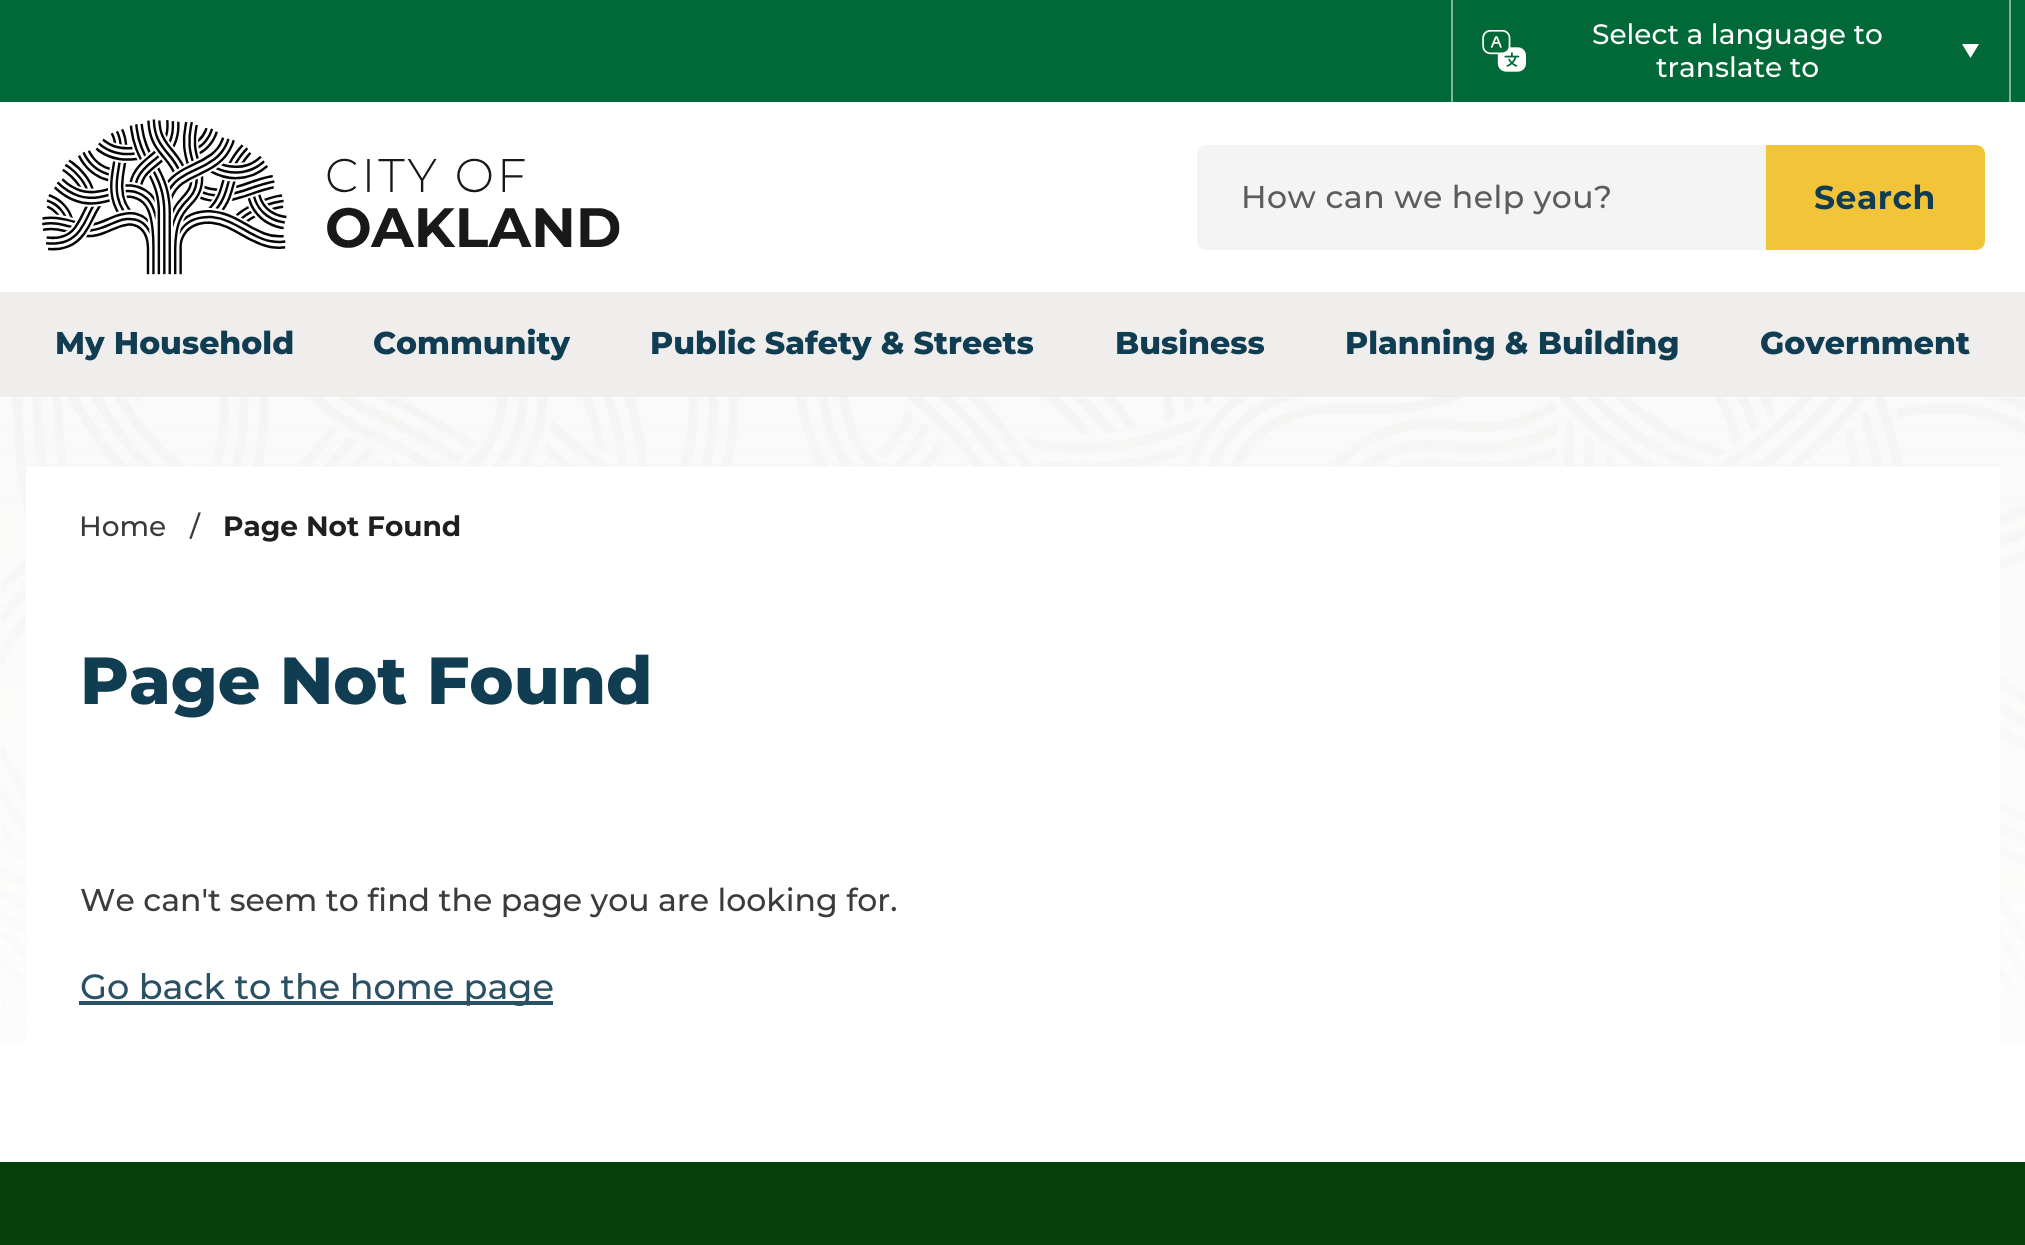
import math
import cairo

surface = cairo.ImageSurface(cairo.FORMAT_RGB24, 2025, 1245)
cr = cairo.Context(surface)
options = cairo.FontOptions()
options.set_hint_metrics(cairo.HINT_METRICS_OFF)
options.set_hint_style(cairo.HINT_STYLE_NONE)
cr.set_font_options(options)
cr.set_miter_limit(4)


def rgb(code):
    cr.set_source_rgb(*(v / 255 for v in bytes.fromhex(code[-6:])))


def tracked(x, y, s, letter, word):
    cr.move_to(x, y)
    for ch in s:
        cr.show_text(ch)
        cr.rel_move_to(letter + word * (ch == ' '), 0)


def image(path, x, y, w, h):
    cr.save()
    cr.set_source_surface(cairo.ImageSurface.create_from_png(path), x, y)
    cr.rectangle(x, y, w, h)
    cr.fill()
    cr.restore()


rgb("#ffffff")
cr.paint()
rgb("#016938")
cr.rectangle(0, 0, 2025, 102)
cr.fill()
image("img/1.png", 1482, 30, 44, 42)
rgb("#80b49c")
cr.rectangle(2009, 0, 2, 102)
cr.fill()
cr.rectangle(1451, 0, 2, 102)
cr.fill()
rgb("#ffffff")
cr.new_path()
cr.move_to(1962, 44)
cr.line_to(1979, 44)
cr.line_to(1970.5, 58)
cr.close_path()
cr.fill()
image("img/2.png", 42, 119, 578, 156)
rgb("#f4f4f4")
cr.new_path()
cr.move_to(1206, 145)
cr.line_to(1766, 145)
cr.line_to(1766, 250)
cr.line_to(1206, 250)
cr.curve_to(1201, 250, 1197, 246, 1197, 241)
cr.line_to(1197, 154)
cr.curve_to(1197, 149, 1201, 145, 1206, 145)
cr.close_path()
cr.fill()
rgb("#f2c439")
cr.new_path()
cr.move_to(1766, 145)
cr.line_to(1976, 145)
cr.curve_to(1981, 145, 1985, 149, 1985, 154)
cr.line_to(1985, 241)
cr.curve_to(1985, 246, 1981, 250, 1976, 250)
cr.line_to(1766, 250)
cr.close_path()
cr.fill()
rgb("#efeeed")
cr.rectangle(0, 292, 2025, 105)
cr.fill()
image("img/3.png", 0, 397, 2025, 646)
for x, y, w, h, color in [
    (26, 467, 1974, 576, "#ffffff"),
    (79, 1001, 474, 4, "#295064"),
    (0, 1162, 2025, 83, "#05400a"),
]:
    rgb(color)
    cr.rectangle(x, y, w, h)
    cr.fill()
cr.select_font_face("Montserrat Medium")
cr.set_font_size(28)
rgb("#ffffff")
cr.move_to(1592, 44)
cr.show_text("Select a language to")
cr.move_to(1656, 77)
cr.show_text("translate to")
cr.set_font_size(31.5)
rgb("#5c5c5c")
tracked(1241, 208, "How can we help you?", 0.5, 0)
cr.select_font_face("Montserrat", cairo.FONT_SLANT_NORMAL, cairo.FONT_WEIGHT_BOLD)
cr.set_font_size(33)
rgb("#113d53")
tracked(1814, 209, "Search", 0.5, 0)
cr.select_font_face("Montserrat ExtraBold")
cr.set_font_size(31.5)
for x, y, s in [
    (55, 354, "My Household"),
    (373, 354, "Community"),
    (650, 354, "Public Safety & Streets"),
    (1115, 354, "Business"),
    (1345, 354, "Planning & Building"),
    (1760, 354, "Government"),
]:
    cr.move_to(x, y)
    cr.show_text(s)
cr.select_font_face("Montserrat Medium")
cr.set_font_size(28)
rgb("#3c3b3b")
cr.move_to(79, 536)
cr.show_text("Home")
cr.move_to(190, 536)
cr.show_text("/")
cr.select_font_face("Montserrat", cairo.FONT_SLANT_NORMAL, cairo.FONT_WEIGHT_BOLD)
rgb("#1f1f1f")
cr.move_to(223, 536)
cr.show_text("Page Not Found")
cr.select_font_face("Montserrat ExtraBold")
cr.set_font_size(66.5)
rgb("#113d53")
cr.move_to(80, 704)
cr.show_text("Page Not Found")
cr.select_font_face("Montserrat Medium")
cr.set_font_size(31.5)
rgb("#3c3b3b")
cr.move_to(80, 911)
cr.show_text("We can't seem to find the page you are looking for.")
cr.set_font_size(35)
rgb("#295064")
cr.move_to(80, 999)
cr.show_text("Go back to the home page")
surface.write_to_png("page.png")
